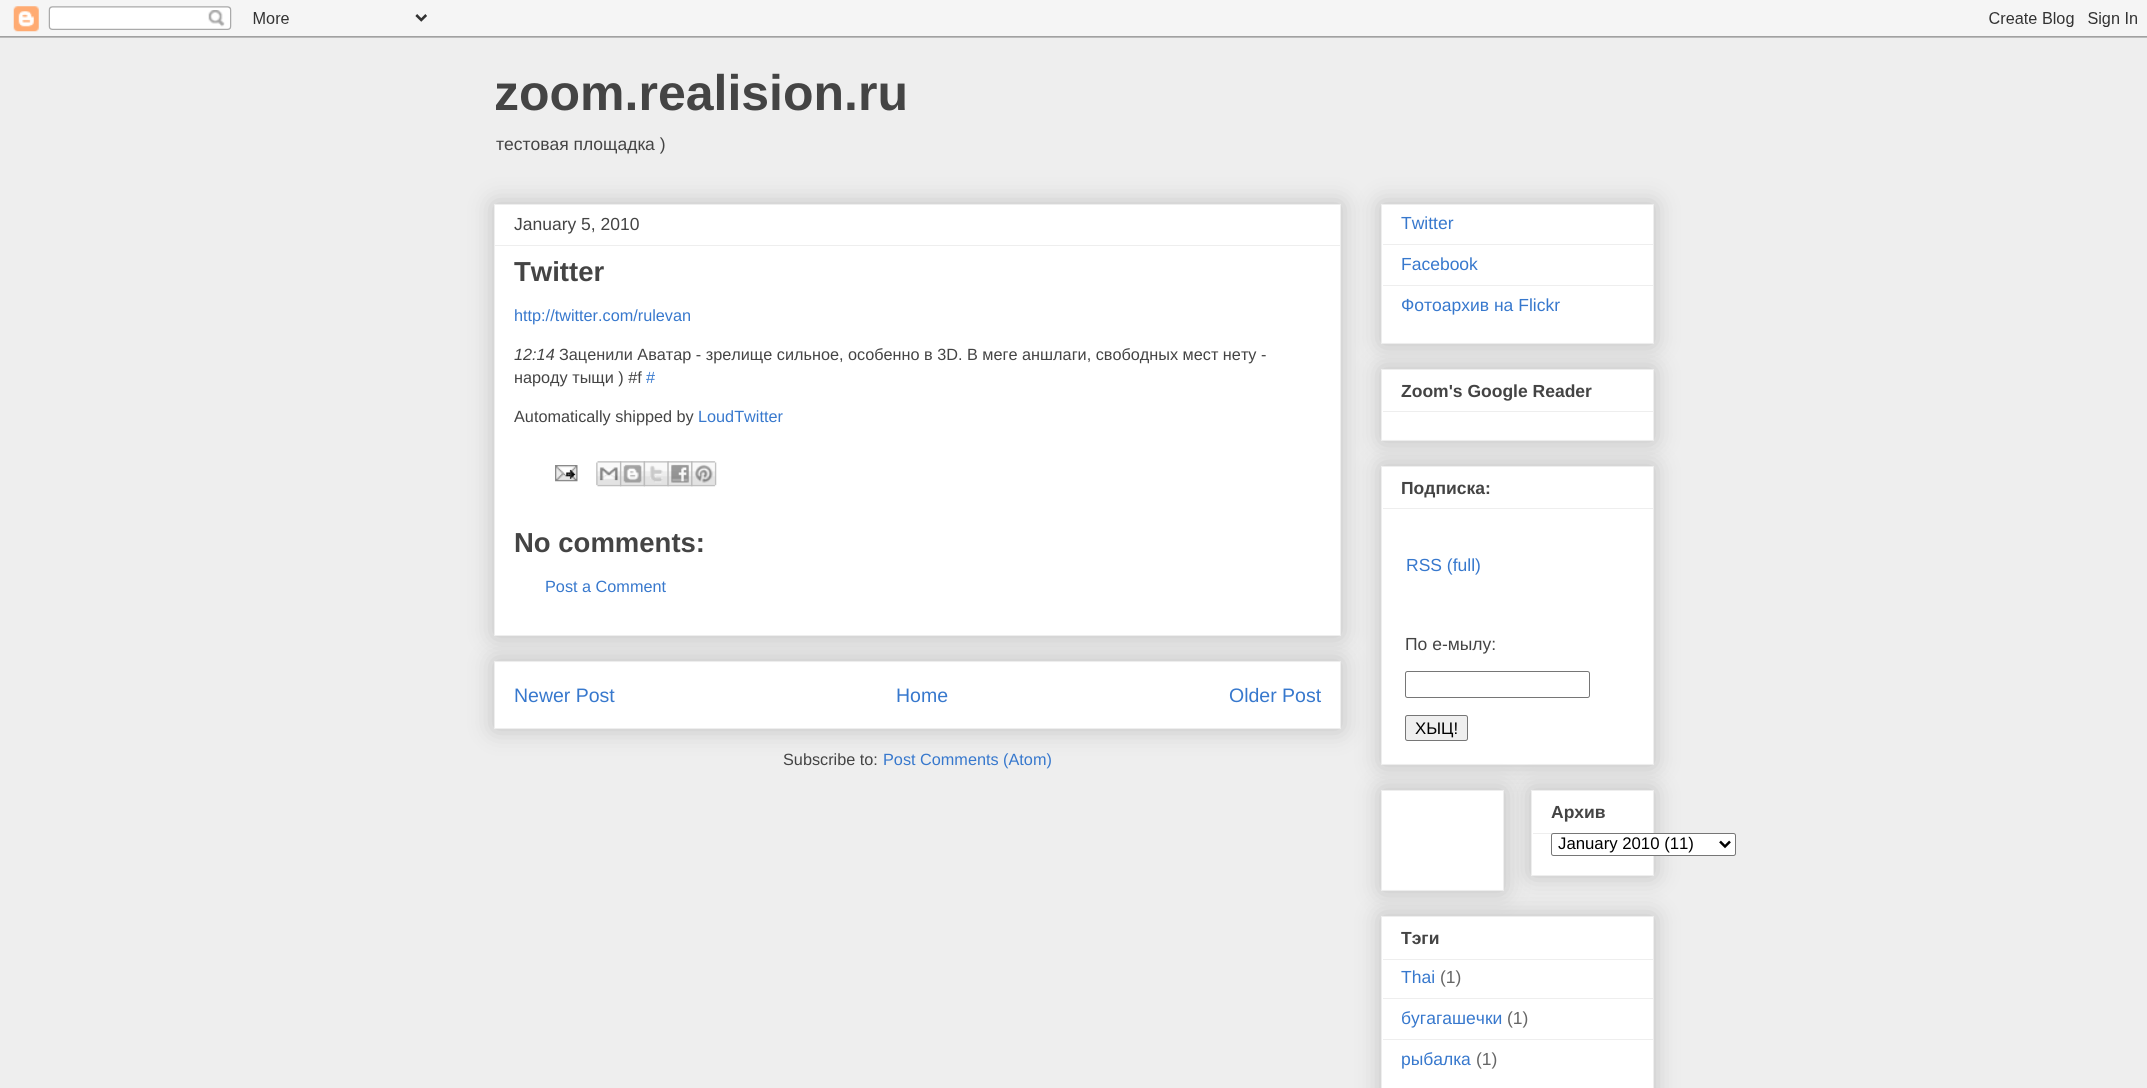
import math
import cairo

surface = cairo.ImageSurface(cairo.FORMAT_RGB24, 2147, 1088)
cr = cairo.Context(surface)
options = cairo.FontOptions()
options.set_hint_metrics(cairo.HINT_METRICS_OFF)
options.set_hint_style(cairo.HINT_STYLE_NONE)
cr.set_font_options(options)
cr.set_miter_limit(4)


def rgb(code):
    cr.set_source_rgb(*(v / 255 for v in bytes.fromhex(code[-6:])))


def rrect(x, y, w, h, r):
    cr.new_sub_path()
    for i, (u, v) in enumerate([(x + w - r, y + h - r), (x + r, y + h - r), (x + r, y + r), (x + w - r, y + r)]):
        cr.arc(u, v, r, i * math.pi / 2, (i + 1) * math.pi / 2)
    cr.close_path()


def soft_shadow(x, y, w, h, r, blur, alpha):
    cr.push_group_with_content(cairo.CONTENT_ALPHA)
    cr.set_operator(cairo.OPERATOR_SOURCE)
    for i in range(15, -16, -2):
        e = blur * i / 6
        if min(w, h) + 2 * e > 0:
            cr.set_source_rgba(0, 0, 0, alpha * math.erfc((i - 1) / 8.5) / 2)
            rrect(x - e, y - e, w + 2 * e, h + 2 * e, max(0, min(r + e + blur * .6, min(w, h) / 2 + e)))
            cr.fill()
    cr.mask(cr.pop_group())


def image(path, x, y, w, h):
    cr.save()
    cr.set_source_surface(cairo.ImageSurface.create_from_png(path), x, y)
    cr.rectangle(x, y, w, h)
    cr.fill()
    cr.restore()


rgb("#eeeeee")
cr.paint()
image("img/1.png", 0, 0, 2147, 38)
rgb("#000000")
soft_shadow(494, 661, 847, 68, 0, 12.5, 0.2)
rgb("#ffffff")
cr.rectangle(494.5, 661.5, 846, 67)
cr.fill_preserve()
rgb("#eeeeee")
cr.set_line_width(1)
cr.stroke()
rgb("#000000")
soft_shadow(494, 204, 847, 432, 0, 12.5, 0.2)
rgb("#ffffff")
cr.rectangle(494.5, 204.5, 846, 431)
cr.fill_preserve()
rgb("#eeeeee")
cr.stroke()
cr.rectangle(495, 245, 845, 1)
cr.fill()
image("img/2.png", 555, 465, 23, 17)
image("img/3.png", 596, 461, 26, 26)
image("img/4.png", 620, 461, 25, 26)
image("img/5.png", 643, 461, 26, 26)
image("img/6.png", 667, 461, 26, 26)
image("img/7.png", 691, 461, 26, 26)
rgb("#000000")
soft_shadow(1381, 204, 273, 140, 0, 12.5, 0.2)
rgb("#ffffff")
cr.rectangle(1381.5, 204.5, 272, 139)
cr.fill_preserve()
rgb("#eeeeee")
cr.stroke()
cr.rectangle(1383, 244, 270, 1)
cr.fill()
cr.rectangle(1383, 285, 270, 1)
cr.fill()
rgb("#000000")
soft_shadow(1381, 369, 273, 72, 0, 12.5, 0.2)
rgb("#ffffff")
cr.rectangle(1381.5, 369.5, 272, 71)
cr.fill_preserve()
rgb("#eeeeee")
cr.stroke()
cr.rectangle(1383, 411, 270, 1)
cr.fill()
rgb("#000000")
soft_shadow(1381, 466, 273, 299, 0, 12.5, 0.2)
rgb("#ffffff")
cr.rectangle(1381.5, 466.5, 272, 298)
cr.fill_preserve()
rgb("#eeeeee")
cr.stroke()
cr.rectangle(1383, 508, 270, 1)
cr.fill()
rrect(1405.5, 671.5, 184, 26, 2)
rgb("#767676")
cr.stroke()
rgb("#efefef")
rrect(1405.5, 715.5, 62, 25, 2)
cr.fill_preserve()
rgb("#767676")
cr.stroke()
rgb("#000000")
soft_shadow(1381, 790, 123, 101, 0, 12.5, 0.2)
rgb("#ffffff")
cr.rectangle(1381.5, 790.5, 122, 100)
cr.fill_preserve()
rgb("#eeeeee")
cr.stroke()
rgb("#000000")
soft_shadow(1531, 790, 123, 86, 0, 12.5, 0.2)
rgb("#ffffff")
cr.rectangle(1531.5, 790.5, 122, 85)
cr.fill_preserve()
rgb("#eeeeee")
cr.stroke()
cr.rectangle(1533, 833, 21, 1)
cr.fill()
rgb("#ffffff")
rrect(1551.5, 833.5, 184, 22, 2)
cr.fill_preserve()
rgb("#767676")
cr.stroke()
cr.new_path()
cr.move_to(1720, 841.5)
cr.line_to(1725, 846.5)
cr.line_to(1730, 841.5)
rgb("#000000")
cr.set_line_width(2.5)
cr.stroke()
rgb("#000000")
soft_shadow(1381, 916, 273, 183, 0, 12.5, 0.2)
rgb("#ffffff")
cr.rectangle(1381.5, 916.5, 272, 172)
cr.fill_preserve()
rgb("#eeeeee")
cr.set_line_width(1)
cr.stroke()
for x, y, w, h, color in [
    (1383, 959, 270, 1, "#eeeeee"),
    (1383, 998, 270, 1, "#eeeeee"),
    (1383, 1039, 270, 1, "#eeeeee"),
]:
    rgb(color)
    cr.rectangle(x, y, w, h)
    cr.fill()
cr.select_font_face("Liberation Sans", cairo.FONT_SLANT_NORMAL, cairo.FONT_WEIGHT_BOLD)
cr.set_font_size(50)
rgb("#444444")
cr.move_to(494, 110)
cr.show_text("zoom.realision.ru")
cr.select_font_face("Liberation Sans")
cr.set_font_size(17.5)
cr.move_to(496, 150)
cr.show_text("тестовая площадка )")
cr.move_to(514, 230)
cr.show_text("January 5, 2010")
cr.select_font_face("Liberation Sans", cairo.FONT_SLANT_NORMAL, cairo.FONT_WEIGHT_BOLD)
cr.set_font_size(27.5)
cr.move_to(514, 281)
cr.show_text("Twitter")
cr.select_font_face("Liberation Sans")
cr.set_font_size(16.25)
rgb("#3778cd")
cr.move_to(514, 321)
cr.show_text("http://twitter.com/rulevan")
cr.select_font_face("Liberation Sans", cairo.FONT_SLANT_ITALIC)
rgb("#444444")
cr.move_to(514, 360)
cr.show_text("12:14")
cr.select_font_face("Liberation Sans")
cr.move_to(559, 360)
cr.show_text("Заценили Аватар - зрелище сильное, особенно в 3D. В меге аншлаги, свободных мест нету -")
cr.move_to(514, 383)
cr.show_text("народу тыщи ) #f")
rgb("#3778cd")
cr.move_to(646, 383)
cr.show_text("#")
rgb("#444444")
cr.move_to(514, 422)
cr.show_text("Automatically shipped by")
rgb("#3778cd")
cr.move_to(698, 422)
cr.show_text("LoudTwitter")
cr.select_font_face("Liberation Sans", cairo.FONT_SLANT_NORMAL, cairo.FONT_WEIGHT_BOLD)
cr.set_font_size(27.5)
rgb("#444444")
cr.move_to(514, 552)
cr.show_text("No comments:")
cr.select_font_face("Liberation Sans")
cr.set_font_size(16.25)
rgb("#3778cd")
cr.move_to(545, 592)
cr.show_text("Post a Comment")
cr.set_font_size(19.5)
for x, y, s in [
    (514, 702, "Newer Post"),
    (896, 702, "Home"),
    (1229, 702, "Older Post"),
]:
    cr.move_to(x, y)
    cr.show_text(s)
cr.set_font_size(16.25)
rgb("#444444")
cr.move_to(783, 765)
cr.show_text("Subscribe to:")
rgb("#3778cd")
cr.move_to(883, 765)
cr.show_text("Post Comments (Atom)")
cr.set_font_size(17.5)
for x, y, s in [
    (1401, 229, "Twitter"),
    (1401, 270, "Facebook"),
    (1401, 311, "Фотоархив на Flickr"),
]:
    cr.move_to(x, y)
    cr.show_text(s)
cr.select_font_face("Liberation Sans", cairo.FONT_SLANT_NORMAL, cairo.FONT_WEIGHT_BOLD)
rgb("#444444")
cr.move_to(1401, 397)
cr.show_text("Zoom's Google Reader")
cr.move_to(1401, 494)
cr.show_text("Подписка:")
cr.select_font_face("Liberation Sans")
rgb("#3778cd")
cr.move_to(1406, 571)
cr.show_text("RSS (full)")
rgb("#444444")
cr.move_to(1405, 650)
cr.show_text("По е-мылу:")
cr.set_font_size(16.75)
rgb("#000000")
cr.move_to(1415, 734)
cr.show_text("ХЫЦ!")
cr.select_font_face("Liberation Sans", cairo.FONT_SLANT_NORMAL, cairo.FONT_WEIGHT_BOLD)
cr.set_font_size(17.5)
rgb("#444444")
cr.move_to(1551, 818)
cr.show_text("Архив")
cr.select_font_face("Liberation Sans")
cr.set_font_size(16.75)
rgb("#000000")
cr.move_to(1558, 849)
cr.show_text("January 2010 (11)")
cr.select_font_face("Liberation Sans", cairo.FONT_SLANT_NORMAL, cairo.FONT_WEIGHT_BOLD)
cr.set_font_size(17.5)
rgb("#444444")
cr.move_to(1401, 944)
cr.show_text("Тэги")
cr.select_font_face("Liberation Sans")
rgb("#3778cd")
cr.move_to(1401, 983)
cr.show_text("Thai")
rgb("#666666")
cr.move_to(1440, 983)
cr.show_text("(1)")
rgb("#3778cd")
cr.move_to(1401, 1024)
cr.show_text("бугагашечки")
rgb("#666666")
cr.move_to(1507, 1024)
cr.show_text("(1)")
rgb("#3778cd")
cr.move_to(1401, 1065)
cr.show_text("рыбалка")
rgb("#666666")
cr.move_to(1476, 1065)
cr.show_text("(1)")
surface.write_to_png("page.png")
